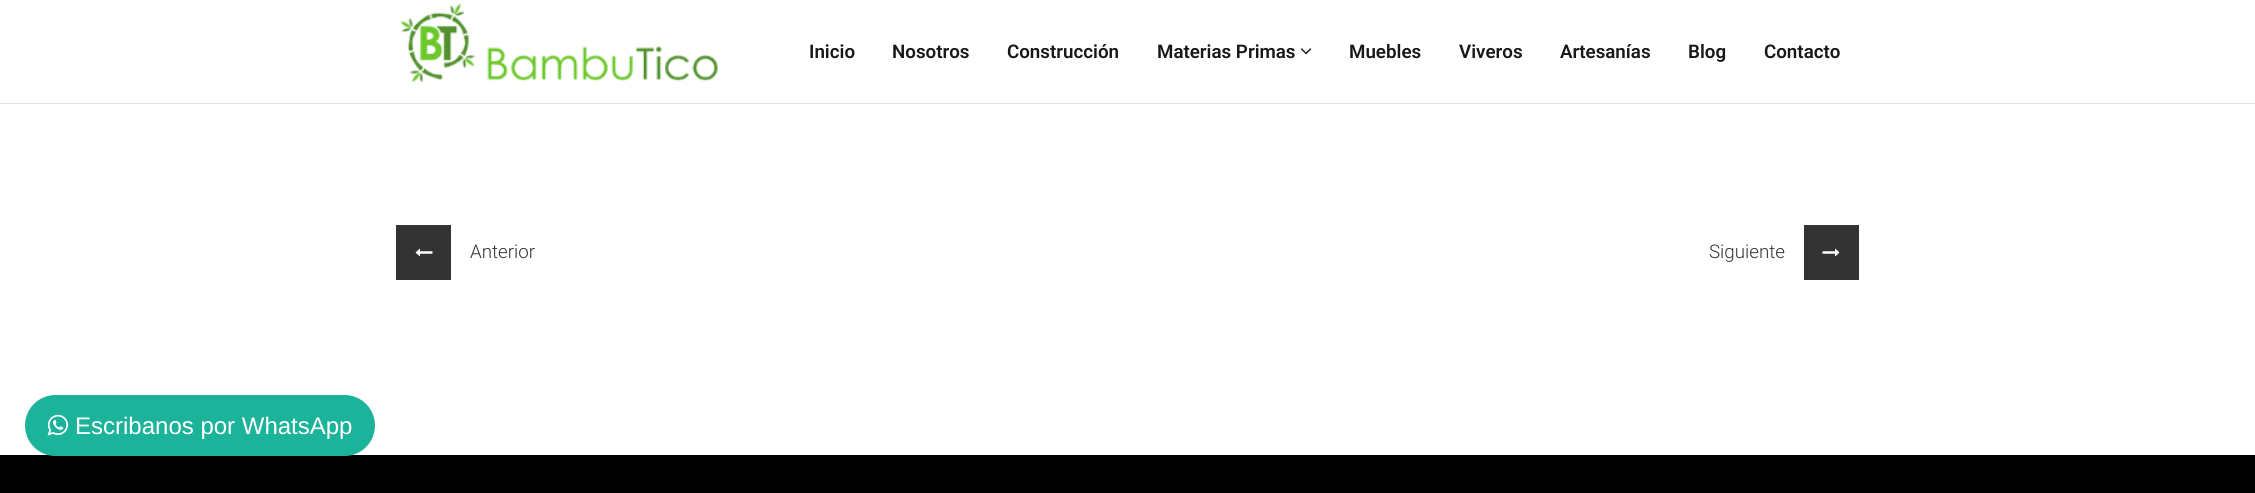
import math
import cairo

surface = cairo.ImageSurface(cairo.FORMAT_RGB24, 2255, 493)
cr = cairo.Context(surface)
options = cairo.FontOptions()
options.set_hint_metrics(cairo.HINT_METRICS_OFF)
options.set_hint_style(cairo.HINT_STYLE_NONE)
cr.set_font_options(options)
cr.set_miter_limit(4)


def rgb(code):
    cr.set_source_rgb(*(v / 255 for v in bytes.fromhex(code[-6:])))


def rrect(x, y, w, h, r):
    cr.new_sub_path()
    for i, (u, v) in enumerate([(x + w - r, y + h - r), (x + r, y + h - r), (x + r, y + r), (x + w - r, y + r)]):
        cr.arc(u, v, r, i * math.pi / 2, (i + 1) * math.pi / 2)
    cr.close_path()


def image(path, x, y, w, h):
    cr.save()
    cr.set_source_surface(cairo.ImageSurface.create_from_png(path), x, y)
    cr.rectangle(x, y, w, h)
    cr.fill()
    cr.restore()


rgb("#ffffff")
cr.paint()
rgb("#e0e0e0")
cr.rectangle(0, 103, 2255, 1)
cr.fill()
image("img/1.png", 400, 3, 318, 80)
image("img/2.png", 1300, 48, 12, 7)
rgb("#333333")
cr.rectangle(396, 225, 55, 55)
cr.fill()
image("img/3.png", 415, 248, 18, 9)
cr.rectangle(1804, 225, 55, 55)
cr.fill()
image("img/4.png", 1822, 248, 18, 9)
rgb("#000000")
cr.rectangle(0, 455, 2255, 38)
cr.fill()
rgb("#1cb39b")
rrect(27, 397, 346, 57, 28.5)
cr.fill_preserve()
cr.set_line_width(4)
cr.stroke()
image("img/5.png", 47, 414, 22, 22)
cr.select_font_face("Roboto SemiBold")
cr.set_font_size(18.75)
rgb("#181818")
for x, y, s in [
    (809, 58, "Inicio"),
    (892, 58, "Nosotros"),
    (1007, 58, "Construcción"),
    (1157, 58, "Materias Primas"),
    (1349, 58, "Muebles"),
    (1459, 58, "Viveros"),
    (1560, 58, "Artesanías"),
    (1688, 58, "Blog"),
    (1764, 58, "Contacto"),
]:
    cr.move_to(x, y)
    cr.show_text(s)
cr.select_font_face("Roboto Light")
rgb("#333333")
cr.move_to(470, 258)
cr.show_text("Anterior")
cr.move_to(1709, 258)
cr.show_text("Siguiente")
cr.select_font_face("Liberation Sans")
cr.set_font_size(24)
rgb("#ffffff")
cr.move_to(75, 434)
cr.show_text("Escribanos por WhatsApp")
surface.write_to_png("page.png")
